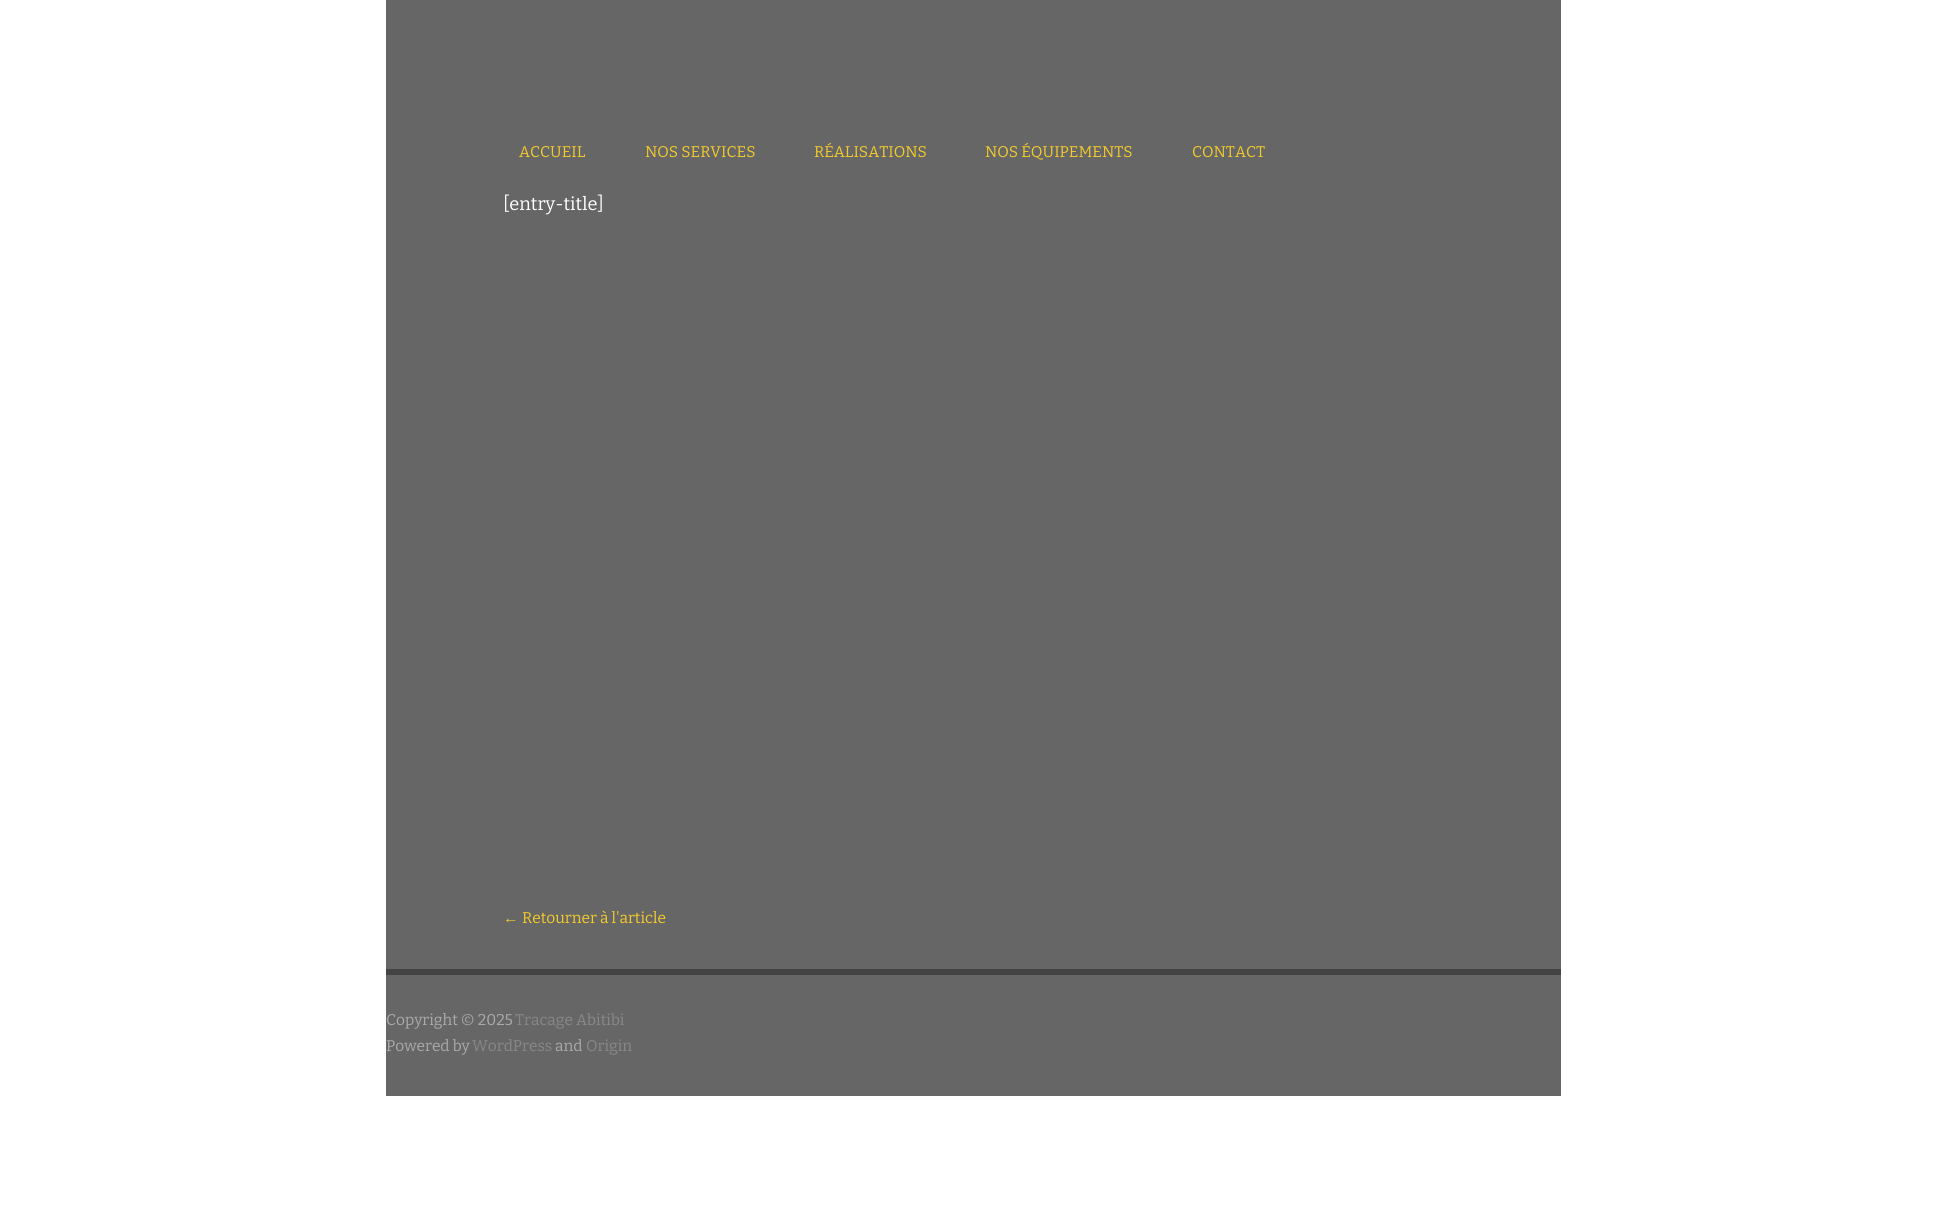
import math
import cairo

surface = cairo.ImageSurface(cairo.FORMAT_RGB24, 1946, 1212)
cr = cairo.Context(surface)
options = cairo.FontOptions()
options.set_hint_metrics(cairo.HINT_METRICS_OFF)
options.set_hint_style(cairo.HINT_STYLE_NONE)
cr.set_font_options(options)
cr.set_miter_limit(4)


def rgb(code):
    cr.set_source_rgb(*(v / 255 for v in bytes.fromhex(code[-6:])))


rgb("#ffffff")
cr.paint()
rgb("#666666")
cr.rectangle(386, 0, 1175, 1096)
cr.fill()
rgb("#444444")
cr.rectangle(386, 969, 1175, 6)
cr.fill()
cr.select_font_face("Bitter Thin")
cr.set_font_size(15.5)
rgb("#f4cb2c")
for x, y, s in [
    (519, 157, "ACCUEIL"),
    (645, 157, "NOS SERVICES"),
    (814, 157, "RÉALISATIONS"),
    (985, 157, "NOS ÉQUIPEMENTS"),
    (1192, 157, "CONTACT"),
]:
    cr.move_to(x, y)
    cr.show_text(s)
cr.set_font_size(18.25)
rgb("#ffffff")
cr.move_to(503, 210)
cr.show_text("[entry-title]")
cr.select_font_face("Liberation Serif")
cr.set_font_size(15.5)
rgb("#f4cb2c")
cr.move_to(503, 923)
cr.show_text("←")
cr.select_font_face("Bitter Thin")
cr.move_to(522, 923)
cr.show_text("Retourner à l'article")
rgb("#aaaaaa")
cr.move_to(386, 1025)
cr.show_text("Copyright © 2025")
rgb("#888888")
cr.move_to(515, 1025)
cr.show_text("Tracage Abitibi")
rgb("#aaaaaa")
cr.move_to(386, 1051)
cr.show_text("Powered by")
rgb("#888888")
cr.move_to(472, 1051)
cr.show_text("WordPress")
rgb("#aaaaaa")
cr.move_to(555, 1051)
cr.show_text("and")
rgb("#888888")
cr.move_to(586, 1051)
cr.show_text("Origin")
surface.write_to_png("page.png")
